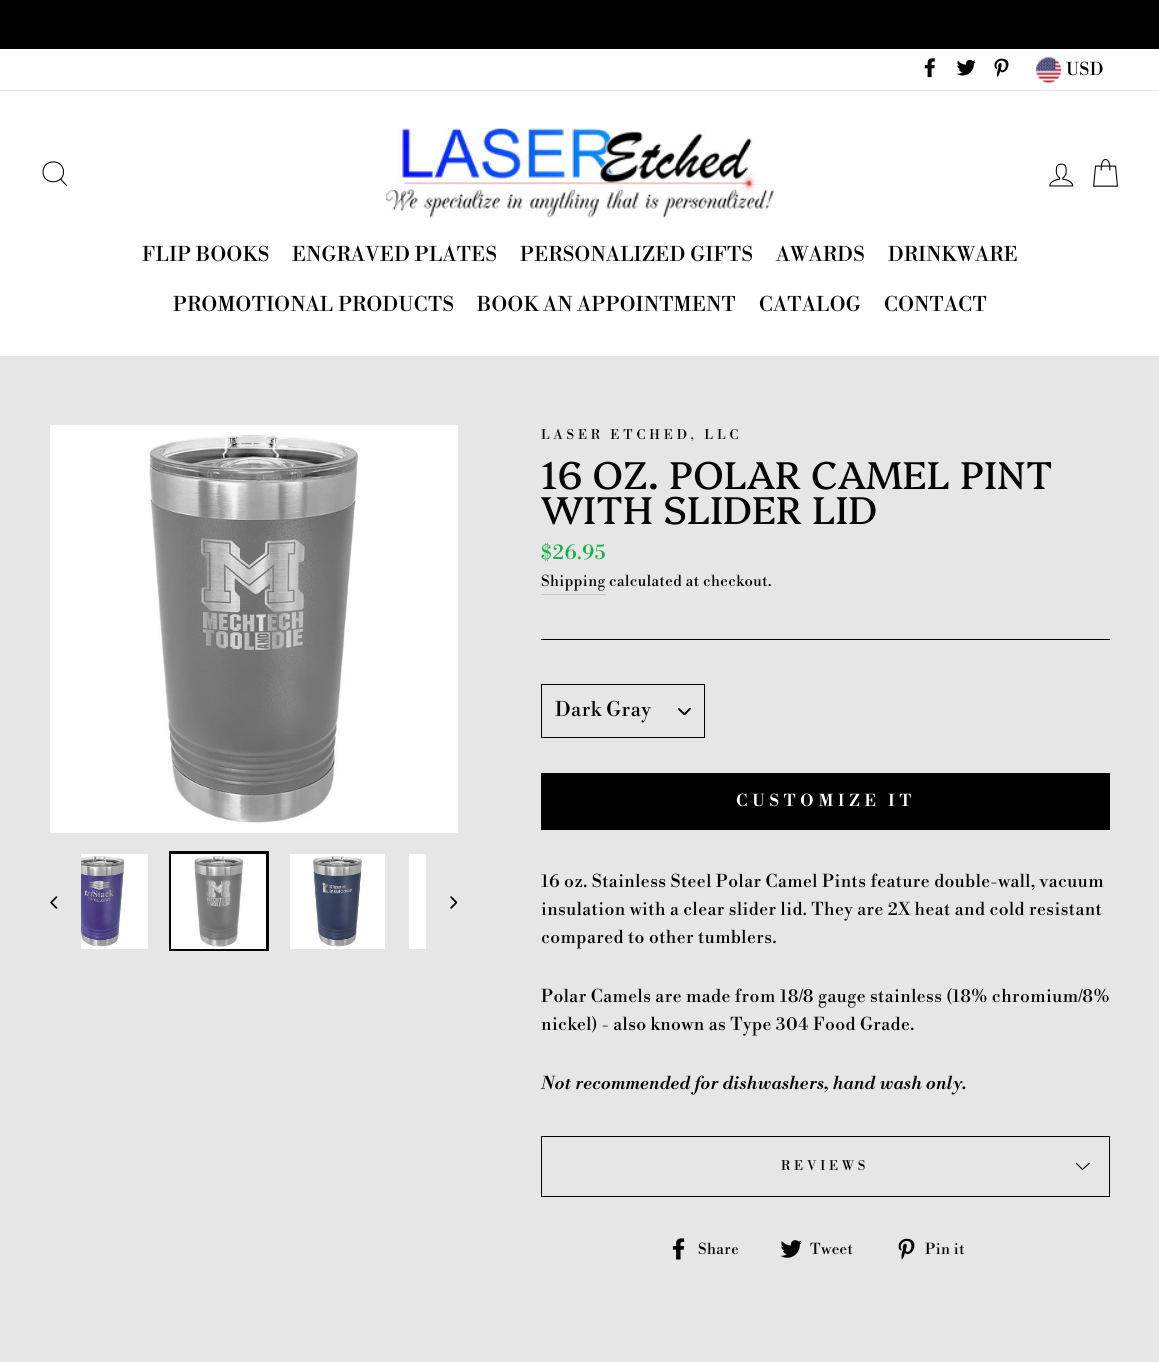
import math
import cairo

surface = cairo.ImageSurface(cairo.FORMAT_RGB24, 1159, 1362)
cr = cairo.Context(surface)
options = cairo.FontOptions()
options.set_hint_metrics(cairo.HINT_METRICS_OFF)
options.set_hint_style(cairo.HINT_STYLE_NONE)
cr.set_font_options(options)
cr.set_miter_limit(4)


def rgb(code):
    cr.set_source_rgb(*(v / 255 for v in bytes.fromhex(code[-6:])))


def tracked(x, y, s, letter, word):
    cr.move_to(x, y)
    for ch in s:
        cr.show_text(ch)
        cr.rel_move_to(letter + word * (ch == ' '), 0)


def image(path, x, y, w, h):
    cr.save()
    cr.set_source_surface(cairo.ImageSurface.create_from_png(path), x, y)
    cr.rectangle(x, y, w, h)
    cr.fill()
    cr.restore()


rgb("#e6e6e6")
cr.paint()
rgb("#000000")
cr.rectangle(0, 0, 1159, 49)
cr.fill()
rgb("#ffffff")
cr.rectangle(0, 49, 1159, 41)
cr.fill()
image("img/1.png", 924, 58, 11, 20)
image("img/2.png", 956, 59, 20, 17)
image("img/3.png", 994, 58, 15, 19)
image("img/4.png", 1036, 57, 26, 26)
cr.rectangle(0, 91, 1159, 265)
cr.fill()
cr.new_path()
cr.move_to(63.5, 172)
cr.curve_to(63.5, 185, 43, 185, 43, 172)
cr.curve_to(43, 158.5, 63.5, 158.5, 63.5, 172)
cr.close_path()
cr.move_to(67, 186)
cr.line_to(60.5, 179)
rgb("#050505")
cr.set_line_width(1.1)
cr.stroke()
image("img/5.png", 386, 128, 388, 90)
image("img/6.png", 1049, 163, 25, 24)
image("img/7.png", 1093, 159, 26, 28)
rgb("#ffffff")
cr.rectangle(50, 425, 408, 408)
cr.fill()
image("img/8.png", 149, 434, 209, 389)
image("img/9.png", 50, 896, 8, 13)
cr.rectangle(81, 854, 67, 95)
cr.fill()
image("img/10.png", 81, 856, 44, 91)
cr.rectangle(170.5, 852.5, 97, 97)
rgb("#050505")
cr.set_line_width(3)
cr.stroke()
rgb("#ffffff")
cr.rectangle(171, 854, 95, 95)
cr.fill()
image("img/11.png", 194, 856, 49, 91)
cr.rectangle(290, 854, 95, 95)
cr.fill()
image("img/12.png", 313, 856, 49, 91)
cr.rectangle(409, 854, 17, 95)
cr.fill()
image("img/13.png", 450, 896, 8, 13)
rgb("#c4c4c4")
cr.rectangle(541, 594, 65, 1)
cr.fill()
rgb("#050505")
cr.rectangle(541, 639, 569, 1)
cr.fill()
image("img/14.png", 678, 708, 13, 7)
cr.rectangle(541.5, 684.5, 163, 53)
cr.set_line_width(1)
cr.stroke()
for x, y, w, h, color in [
    (541, 773, 569, 57, "#000000"),
    (541, 1196, 569, 1, "#050505"),
    (541, 1136, 569, 1, "#050505"),
    (1109, 1136, 1, 60, "#050505"),
    (541, 1136, 1, 60, "#050505"),
]:
    rgb(color)
    cr.rectangle(x, y, w, h)
    cr.fill()
cr.new_path()
cr.move_to(1076, 1163)
cr.line_to(1082.5, 1169.5)
cr.line_to(1089.5, 1163)
cr.set_line_width(1.1)
cr.stroke()
image("img/15.png", 672, 1238, 13, 22)
image("img/16.png", 780, 1240, 22, 18)
image("img/17.png", 898, 1238, 17, 22)
cr.select_font_face("Libre Bodoni")
cr.set_font_size(17.5)
tracked(1066, 75, "USD", 0.45, 0)
cr.set_font_size(20)
for x, y, s in [
    (142, 261, "FLIP BOOKS"),
    (292, 261, "ENGRAVED PLATES"),
    (520, 261, "PERSONALIZED GIFTS"),
    (776, 261, "AWARDS"),
    (888, 261, "DRINKWARE"),
    (173, 311, "PROMOTIONAL PRODUCTS"),
    (477, 311, "BOOK AN APPOINTMENT"),
    (759, 311, "CATALOG"),
    (884, 311, "CONTACT"),
]:
    tracked(x, y, s, 0.45, 0)
cr.set_font_size(13.1)
tracked(541, 439, "LASER ETCHED, LLC", 3.9, 0)
cr.select_font_face("Platypi")
cr.set_font_size(38.75)
cr.move_to(541, 489)
cr.show_text("16 OZ. POLAR CAMEL PINT")
cr.move_to(541, 524)
cr.show_text("WITH SLIDER LID")
cr.select_font_face("Libre Bodoni")
cr.set_font_size(20)
rgb("#16af49")
tracked(541, 559, "$26.95", 0.45, 0)
cr.set_font_size(14.9)
rgb("#050505")
tracked(541, 586, "Shipping", 0.45, 0)
tracked(609, 586, "calculated at checkout.", 0.45, 0)
cr.set_font_size(20)
tracked(555, 716, "Dark Gray", 0.5, 0)
cr.select_font_face("Libre Bodoni SemiBold")
cr.set_font_size(16.25)
rgb("#ffffff")
tracked(736, 806, "CUSTOMIZE IT", 4.9, 0)
cr.select_font_face("Libre Bodoni")
cr.set_font_size(17.5)
rgb("#050505")
for x, y, s in [
    (541, 887, "16 oz. Stainless Steel Polar Camel Pints feature double-wall, vacuum"),
    (541, 915, "insulation with a clear slider lid. They are 2X heat and cold resistant"),
    (541, 943, "compared to other tumblers."),
    (541, 1002, "Polar Camels are made from 18/8 gauge stainless (18% chromium/8%"),
    (541, 1030, "nickel) - also known as Type 304 Food Grade."),
]:
    tracked(x, y, s, 0.45, 0)
cr.select_font_face("Libre Bodoni SemiBold", cairo.FONT_SLANT_ITALIC)
tracked(541, 1089, "Not recommended for dishwashers, hand wash only.", 0.45, 0)
cr.select_font_face("Libre Bodoni")
cr.set_font_size(13.1)
tracked(781, 1170, "REVIEWS", 3.9, 0)
cr.set_font_size(14.9)
for x, y, s in [
    (698, 1254, "Share"),
    (810, 1254, "Tweet"),
    (925, 1254, "Pin it"),
]:
    tracked(x, y, s, 0.45, 0)
surface.write_to_png("page.png")
